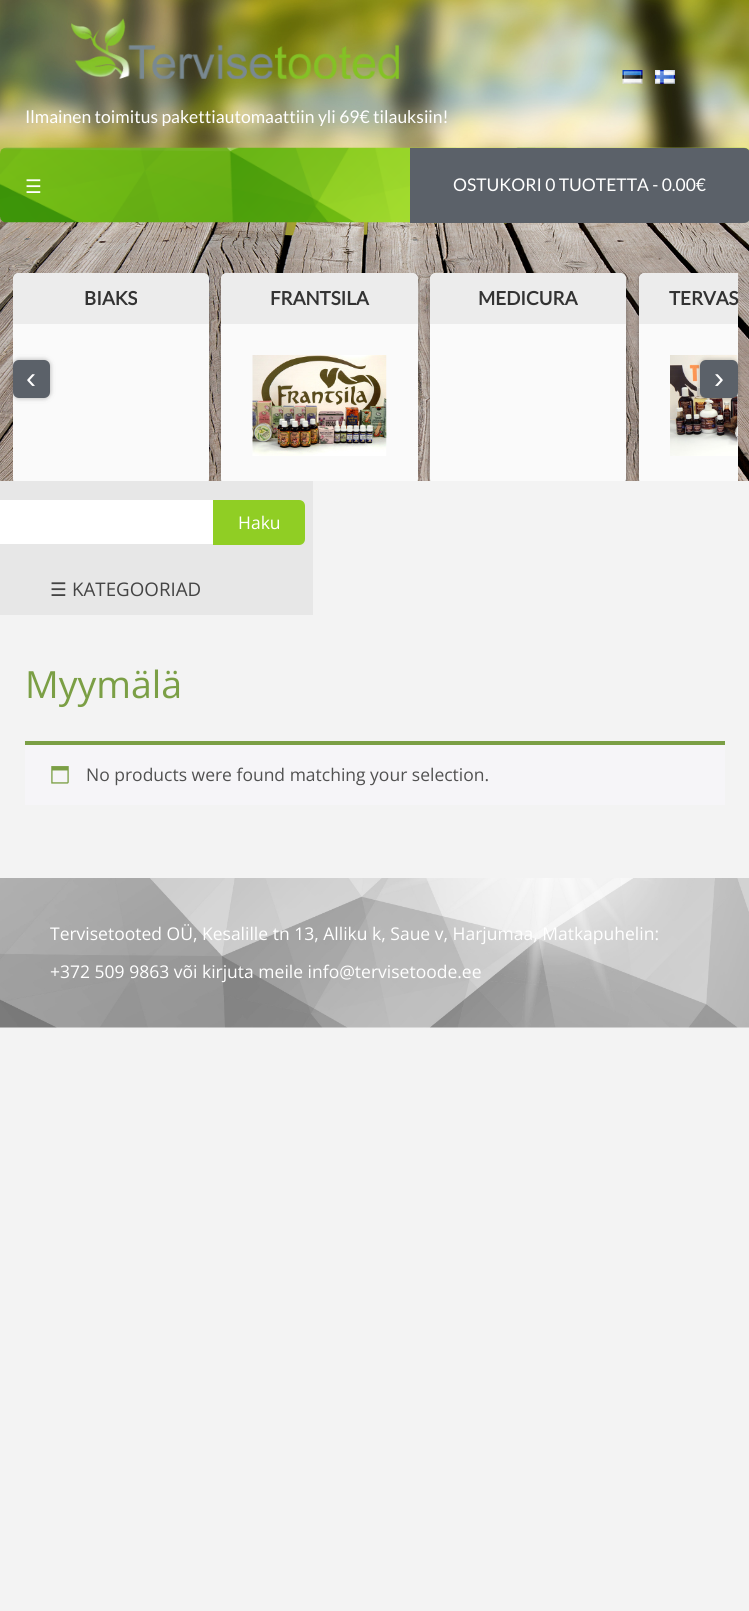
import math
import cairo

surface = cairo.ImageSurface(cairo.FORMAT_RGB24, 749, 1611)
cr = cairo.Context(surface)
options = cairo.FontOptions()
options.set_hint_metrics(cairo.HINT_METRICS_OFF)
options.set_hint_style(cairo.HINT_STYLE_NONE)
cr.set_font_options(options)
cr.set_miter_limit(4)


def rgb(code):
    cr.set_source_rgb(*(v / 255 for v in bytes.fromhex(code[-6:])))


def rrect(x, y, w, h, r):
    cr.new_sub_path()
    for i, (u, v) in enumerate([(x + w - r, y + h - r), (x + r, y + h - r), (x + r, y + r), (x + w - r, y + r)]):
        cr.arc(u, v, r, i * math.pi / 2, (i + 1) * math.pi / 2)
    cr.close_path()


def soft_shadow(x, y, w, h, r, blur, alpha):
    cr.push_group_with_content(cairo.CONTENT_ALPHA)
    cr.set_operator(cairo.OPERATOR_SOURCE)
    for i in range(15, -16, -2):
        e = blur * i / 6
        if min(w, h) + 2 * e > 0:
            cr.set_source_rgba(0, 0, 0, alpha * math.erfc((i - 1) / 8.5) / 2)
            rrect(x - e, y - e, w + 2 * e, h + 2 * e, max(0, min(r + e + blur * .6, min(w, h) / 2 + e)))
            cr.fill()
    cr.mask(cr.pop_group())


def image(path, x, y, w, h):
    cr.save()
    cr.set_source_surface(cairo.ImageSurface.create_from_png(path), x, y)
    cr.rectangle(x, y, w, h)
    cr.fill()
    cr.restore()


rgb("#f3f3f3")
cr.paint()
image("img/1.png", 0, 0, 749, 481)
image("img/2.png", 71, 18, 328, 61)
image("img/3.png", 622, 70, 21, 14)
image("img/4.png", 655, 70, 20, 14)
image("img/5.png", 0, 147, 749, 76)
rgb("#5b6169")
cr.new_path()
cr.move_to(410, 148)
cr.line_to(744, 148)
cr.curve_to(747.5, 148, 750, 150.5, 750, 154)
cr.line_to(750, 217)
cr.curve_to(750, 220.5, 747.5, 223, 744, 223)
cr.line_to(410, 223)
cr.close_path()
cr.fill()
cr.save()
cr.rectangle(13, 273, 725, 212)
cr.clip()
rgb("#323232")
soft_shadow(13, 273, 196, 212, 6, 2.5, 0.4)
cr.restore()
rgb("#fafafa")
rrect(13, 273, 196, 212, 6)
cr.fill()
rgb("#ececec")
cr.new_path()
cr.move_to(19, 273)
cr.line_to(203, 273)
cr.curve_to(206.5, 273, 209, 275.5, 209, 279)
cr.line_to(209, 324)
cr.line_to(13, 324)
cr.line_to(13, 279)
cr.curve_to(13, 275.5, 15.5, 273, 19, 273)
cr.close_path()
cr.fill()
cr.save()
cr.rectangle(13, 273, 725, 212)
cr.clip()
rgb("#323232")
soft_shadow(221, 273, 197, 212, 6, 2.5, 0.4)
cr.restore()
rgb("#fafafa")
rrect(221, 273, 197, 212, 6)
cr.fill()
rgb("#ececec")
cr.new_path()
cr.move_to(227, 273)
cr.line_to(412, 273)
cr.curve_to(415.5, 273, 418, 275.5, 418, 279)
cr.line_to(418, 324)
cr.line_to(221, 324)
cr.line_to(221, 279)
cr.curve_to(221, 275.5, 223.5, 273, 227, 273)
cr.close_path()
cr.fill()
image("img/6.png", 252, 355, 135, 101)
cr.save()
cr.rectangle(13, 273, 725, 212)
cr.clip()
rgb("#323232")
soft_shadow(430, 273, 196, 212, 6, 2.5, 0.4)
cr.restore()
rgb("#fafafa")
rrect(430, 273, 196, 212, 6)
cr.fill()
rgb("#ececec")
cr.new_path()
cr.move_to(436, 273)
cr.line_to(620, 273)
cr.curve_to(623.5, 273, 626, 275.5, 626, 279)
cr.line_to(626, 324)
cr.line_to(430, 324)
cr.line_to(430, 279)
cr.curve_to(430, 275.5, 432.5, 273, 436, 273)
cr.close_path()
cr.fill()
cr.save()
cr.rectangle(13, 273, 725, 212)
cr.clip()
rgb("#323232")
soft_shadow(639, 273, 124, 212, 6, 2.5, 0.4)
cr.restore()
rgb("#fafafa")
cr.new_path()
cr.move_to(645, 273)
cr.line_to(738, 273)
cr.line_to(738, 485)
cr.line_to(645, 485)
cr.curve_to(641.5, 485, 639, 482.5, 639, 479)
cr.line_to(639, 279)
cr.curve_to(639, 275.5, 641.5, 273, 645, 273)
cr.close_path()
cr.fill()
rgb("#ececec")
cr.new_path()
cr.move_to(645, 273)
cr.line_to(738, 273)
cr.line_to(738, 324)
cr.line_to(639, 324)
cr.line_to(639, 279)
cr.curve_to(639, 275.5, 641.5, 273, 645, 273)
cr.close_path()
cr.fill()
image("img/7.png", 670, 355, 68, 101)
rgb("#323232")
soft_shadow(13, 360, 37, 38, 6, 2.5, 0.4)
rgb("#5b6169")
rrect(13, 360, 37, 38, 6)
cr.fill()
rgb("#323232")
soft_shadow(700, 360, 38, 38, 6, 2.5, 0.4)
rgb("#5b6169")
rrect(700, 360, 38, 38, 6)
cr.fill()
for x, y, w, h, color in [
    (13, 481, 725, 4, "#f3f3f3"),
    (0, 481, 313, 134, "#e7e7e7"),
    (0, 500, 213, 44, "#ffffff"),
]:
    rgb(color)
    cr.rectangle(x, y, w, h)
    cr.fill()
rgb("#90ce24")
cr.new_path()
cr.move_to(213, 500)
cr.line_to(299, 500)
cr.curve_to(302.5, 500, 305, 502.5, 305, 506)
cr.line_to(305, 539)
cr.curve_to(305, 542.5, 302.5, 545, 299, 545)
cr.line_to(213, 545)
cr.close_path()
cr.fill()
rgb("#f6f5f8")
cr.rectangle(25, 745, 700, 60)
cr.fill()
rgb("#7b9f45")
cr.rectangle(25, 741, 700, 4)
cr.fill()
image("img/8.png", 51, 766, 18, 18)
image("img/9.png", 0, 878, 749, 150)
cr.select_font_face("Lato")
cr.set_font_size(17.5)
rgb("#ffffff")
cr.move_to(25, 123)
cr.show_text("Ilmainen toimitus pakettiautomaattiin yli 69€ tilauksiin!")
cr.select_font_face("DejaVu Sans")
cr.set_font_size(18.75)
cr.move_to(25, 193)
cr.show_text("☰")
cr.select_font_face("Lato")
cr.set_font_size(17.5)
cr.move_to(453, 191)
cr.show_text("OSTUKORI 0 TUOTETTA - 0.00€")
cr.select_font_face("Lato", cairo.FONT_SLANT_NORMAL, cairo.FONT_WEIGHT_BOLD)
cr.set_font_size(18.75)
rgb("#333333")
for x, y, s in [
    (84, 305, "BIAKS"),
    (270, 305, "FRANTSILA"),
    (478, 305, "MEDICURA"),
    (669, 305, "TERVAS"),
]:
    cr.move_to(x, y)
    cr.show_text(s)
cr.select_font_face("Liberation Sans")
cr.set_font_size(30)
rgb("#ffffff")
cr.move_to(26, 388)
cr.show_text("‹")
cr.move_to(714, 388)
cr.show_text("›")
cr.select_font_face("Open Sans")
cr.set_font_size(17.5)
cr.move_to(238, 529)
cr.show_text("Haku")
cr.select_font_face("DejaVu Sans")
cr.set_font_size(18.75)
rgb("#444444")
cr.move_to(50, 596)
cr.show_text("☰")
cr.select_font_face("Open Sans")
cr.move_to(72, 596)
cr.show_text("KATEGOORIAD")
cr.set_font_size(37.5)
rgb("#7b9f45")
cr.move_to(25, 698)
cr.show_text("Myymälä")
cr.set_font_size(17.5)
rgb("#515151")
cr.move_to(86, 781)
cr.show_text("No products were found matching your selection.")
rgb("#ffffff")
cr.move_to(50, 940)
cr.show_text("Tervisetooted OÜ, Kesalille tn 13, Alliku k, Saue v, Harjumaa, Matkapuhelin:")
cr.move_to(50, 978)
cr.show_text("+372 509 9863 või kirjuta meile info@tervisetoode.ee")
surface.write_to_png("page.png")
